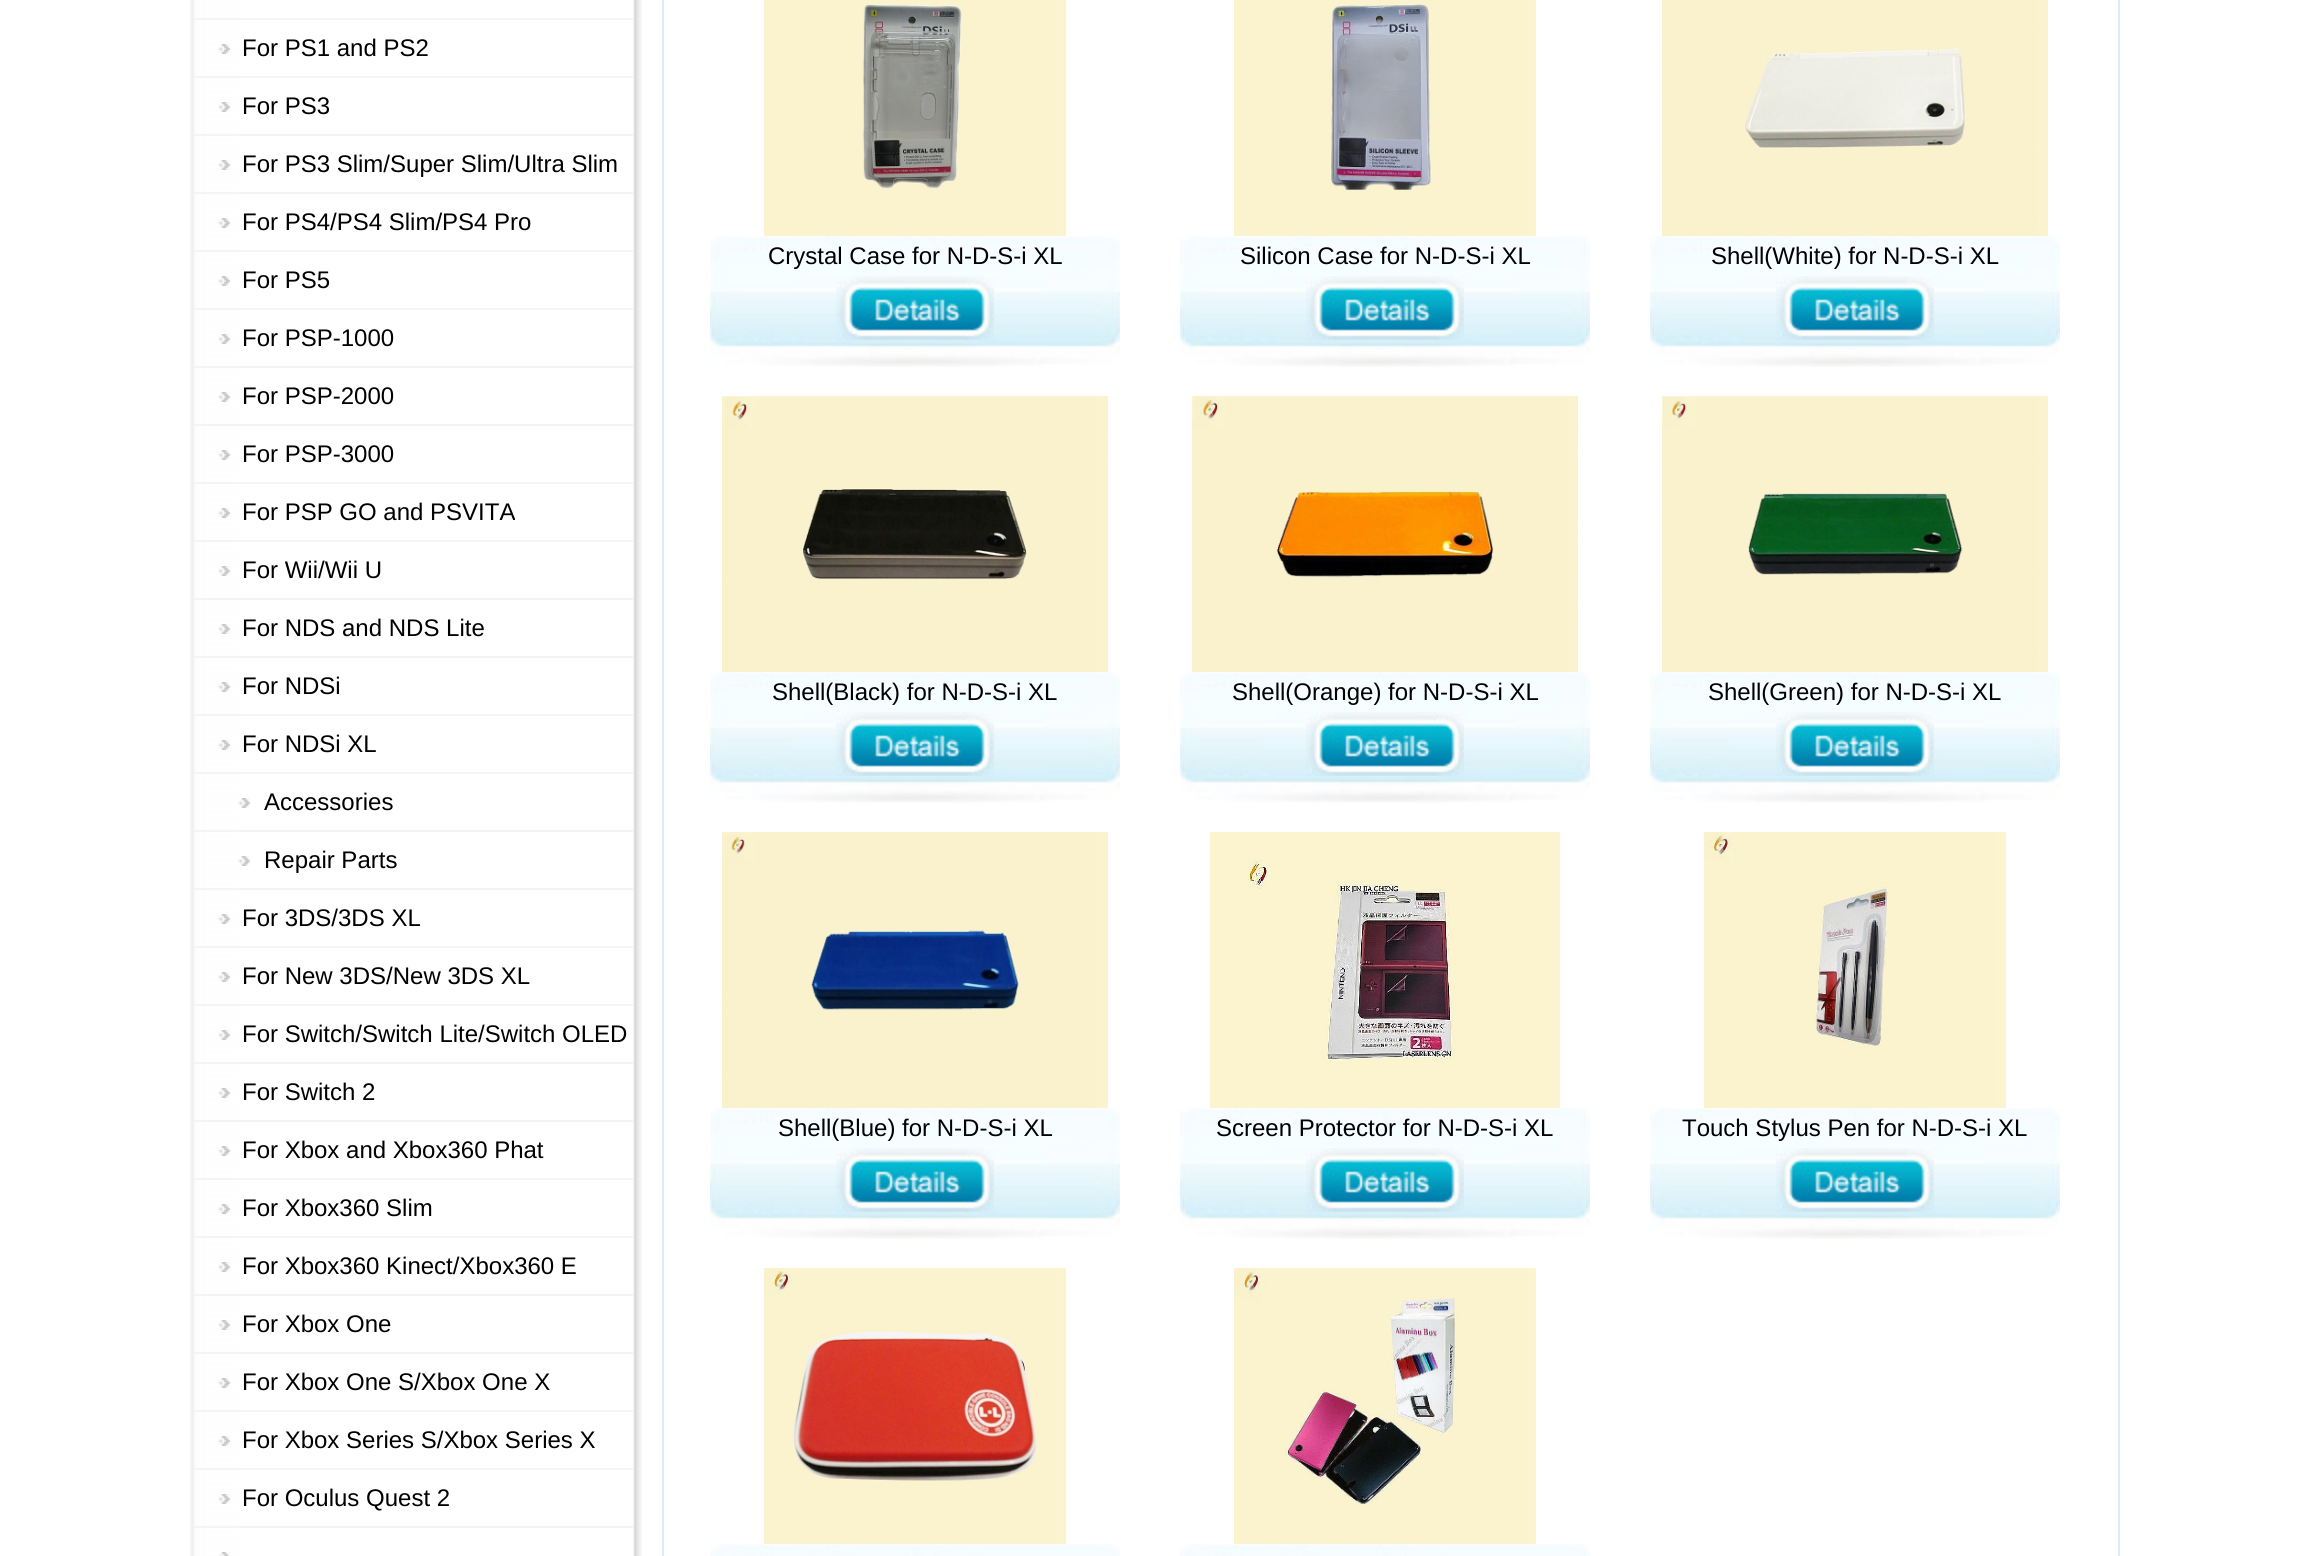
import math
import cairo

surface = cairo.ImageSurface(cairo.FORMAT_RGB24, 2309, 1556)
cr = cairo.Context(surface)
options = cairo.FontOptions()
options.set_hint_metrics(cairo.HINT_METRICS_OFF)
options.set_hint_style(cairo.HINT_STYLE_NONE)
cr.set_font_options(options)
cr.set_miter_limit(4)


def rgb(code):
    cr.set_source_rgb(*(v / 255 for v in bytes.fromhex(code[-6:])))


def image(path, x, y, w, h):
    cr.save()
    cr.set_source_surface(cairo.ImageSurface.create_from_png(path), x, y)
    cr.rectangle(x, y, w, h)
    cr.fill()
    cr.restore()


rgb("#ffffff")
cr.paint()
image("img/1.png", 190, 0, 452, 1556)
rgb("#f4f4f4")
cr.rectangle(194, 18, 440, 2)
cr.fill()
image("img/2.png", 218, 44, 12, 10)
cr.rectangle(194, 76, 440, 2)
cr.fill()
image("img/2.png", 218, 102, 12, 10)
cr.rectangle(194, 134, 440, 2)
cr.fill()
image("img/2.png", 218, 160, 12, 10)
cr.rectangle(194, 192, 440, 2)
cr.fill()
image("img/2.png", 218, 218, 12, 10)
cr.rectangle(194, 250, 440, 2)
cr.fill()
image("img/2.png", 218, 276, 12, 10)
cr.rectangle(194, 308, 440, 2)
cr.fill()
image("img/2.png", 218, 334, 12, 10)
cr.rectangle(194, 366, 440, 2)
cr.fill()
image("img/2.png", 218, 392, 12, 10)
cr.rectangle(194, 424, 440, 2)
cr.fill()
image("img/2.png", 218, 450, 12, 10)
cr.rectangle(194, 482, 440, 2)
cr.fill()
image("img/2.png", 218, 508, 12, 10)
cr.rectangle(194, 540, 440, 2)
cr.fill()
image("img/2.png", 218, 566, 12, 10)
cr.rectangle(194, 598, 440, 2)
cr.fill()
image("img/2.png", 218, 624, 12, 10)
cr.rectangle(194, 656, 440, 2)
cr.fill()
image("img/2.png", 218, 682, 12, 10)
cr.rectangle(194, 714, 440, 2)
cr.fill()
image("img/2.png", 218, 740, 12, 10)
cr.rectangle(194, 772, 440, 2)
cr.fill()
image("img/2.png", 238, 798, 12, 10)
cr.rectangle(194, 830, 440, 2)
cr.fill()
image("img/2.png", 238, 856, 12, 10)
cr.rectangle(194, 888, 440, 2)
cr.fill()
image("img/2.png", 218, 914, 12, 10)
cr.rectangle(194, 946, 440, 2)
cr.fill()
image("img/2.png", 218, 972, 12, 10)
cr.rectangle(194, 1004, 440, 2)
cr.fill()
image("img/2.png", 218, 1030, 12, 10)
cr.rectangle(194, 1062, 440, 2)
cr.fill()
image("img/2.png", 218, 1088, 12, 10)
cr.rectangle(194, 1120, 440, 2)
cr.fill()
image("img/2.png", 218, 1146, 12, 10)
cr.rectangle(194, 1178, 440, 2)
cr.fill()
image("img/2.png", 218, 1204, 12, 10)
cr.rectangle(194, 1236, 440, 2)
cr.fill()
image("img/2.png", 218, 1262, 12, 10)
cr.rectangle(194, 1294, 440, 2)
cr.fill()
image("img/2.png", 218, 1320, 12, 10)
cr.rectangle(194, 1352, 440, 2)
cr.fill()
image("img/2.png", 218, 1378, 12, 10)
cr.rectangle(194, 1410, 440, 2)
cr.fill()
image("img/2.png", 218, 1436, 12, 10)
cr.rectangle(194, 1468, 440, 2)
cr.fill()
image("img/2.png", 218, 1494, 12, 10)
cr.rectangle(194, 1526, 440, 2)
cr.fill()
image("img/3.png", 218, 1552, 12, 4)
cr.rectangle(663, -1, 1456, 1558)
rgb("#d9edf6")
cr.stroke()
image("img/4.png", 764, 0, 302, 236)
image("img/5.png", 710, 236, 410, 131)
image("img/6.png", 836, 276, 158, 64)
image("img/7.png", 1234, 0, 302, 236)
image("img/5.png", 1180, 236, 410, 131)
image("img/6.png", 1306, 276, 158, 64)
image("img/8.png", 1662, 0, 386, 236)
image("img/5.png", 1650, 236, 410, 131)
image("img/6.png", 1776, 276, 158, 64)
image("img/9.png", 722, 396, 386, 276)
image("img/5.png", 710, 672, 410, 131)
image("img/6.png", 836, 712, 158, 64)
image("img/10.png", 1192, 396, 386, 276)
image("img/5.png", 1180, 672, 410, 131)
image("img/6.png", 1306, 712, 158, 64)
image("img/11.png", 1662, 396, 386, 276)
image("img/5.png", 1650, 672, 410, 131)
image("img/6.png", 1776, 712, 158, 64)
image("img/12.png", 722, 832, 386, 276)
image("img/5.png", 710, 1108, 410, 131)
image("img/6.png", 836, 1148, 158, 64)
image("img/13.png", 1210, 832, 350, 276)
image("img/5.png", 1180, 1108, 410, 131)
image("img/6.png", 1306, 1148, 158, 64)
image("img/14.png", 1704, 832, 302, 276)
image("img/5.png", 1650, 1108, 410, 131)
image("img/6.png", 1776, 1148, 158, 64)
image("img/15.png", 764, 1268, 302, 276)
image("img/16.png", 710, 1544, 410, 12)
image("img/17.png", 1234, 1268, 302, 276)
image("img/16.png", 1180, 1544, 410, 12)
cr.select_font_face("Liberation Sans")
cr.set_font_size(24)
rgb("#000000")
for x, y, s in [
    (242, 56, "For PS1 and PS2"),
    (242, 114, "For PS3"),
    (242, 172, "For PS3 Slim/Super Slim/Ultra Slim"),
    (242, 230, "For PS4/PS4 Slim/PS4 Pro"),
    (242, 288, "For PS5"),
    (242, 346, "For PSP-1000"),
    (242, 404, "For PSP-2000"),
    (242, 462, "For PSP-3000"),
    (242, 520, "For PSP GO and PSVITA"),
    (242, 578, "For Wii/Wii U"),
    (242, 636, "For NDS and NDS Lite"),
    (242, 694, "For NDSi"),
    (242, 752, "For NDSi XL"),
    (264, 810, "Accessories"),
    (264, 868, "Repair Parts"),
    (242, 926, "For 3DS/3DS XL"),
    (242, 984, "For New 3DS/New 3DS XL"),
    (242, 1042, "For Switch/Switch Lite/Switch OLED"),
    (242, 1100, "For Switch 2"),
    (242, 1158, "For Xbox and Xbox360 Phat"),
    (242, 1216, "For Xbox360 Slim"),
    (242, 1274, "For Xbox360 Kinect/Xbox360 E"),
    (242, 1332, "For Xbox One"),
    (242, 1390, "For Xbox One S/Xbox One X"),
    (242, 1448, "For Xbox Series S/Xbox Series X"),
    (242, 1506, "For Oculus Quest 2"),
    (768, 264, "Crystal Case for N-D-S-i XL"),
    (1240, 264, "Silicon Case for N-D-S-i XL"),
    (1711, 264, "Shell(White) for N-D-S-i XL"),
    (772, 700, "Shell(Black) for N-D-S-i XL"),
    (1232, 700, "Shell(Orange) for N-D-S-i XL"),
    (1708, 700, "Shell(Green) for N-D-S-i XL"),
    (778, 1136, "Shell(Blue) for N-D-S-i XL"),
    (1216, 1136, "Screen Protector for N-D-S-i XL"),
    (1682, 1136, "Touch Stylus Pen for N-D-S-i XL"),
]:
    cr.move_to(x, y)
    cr.show_text(s)
surface.write_to_png("page.png")
